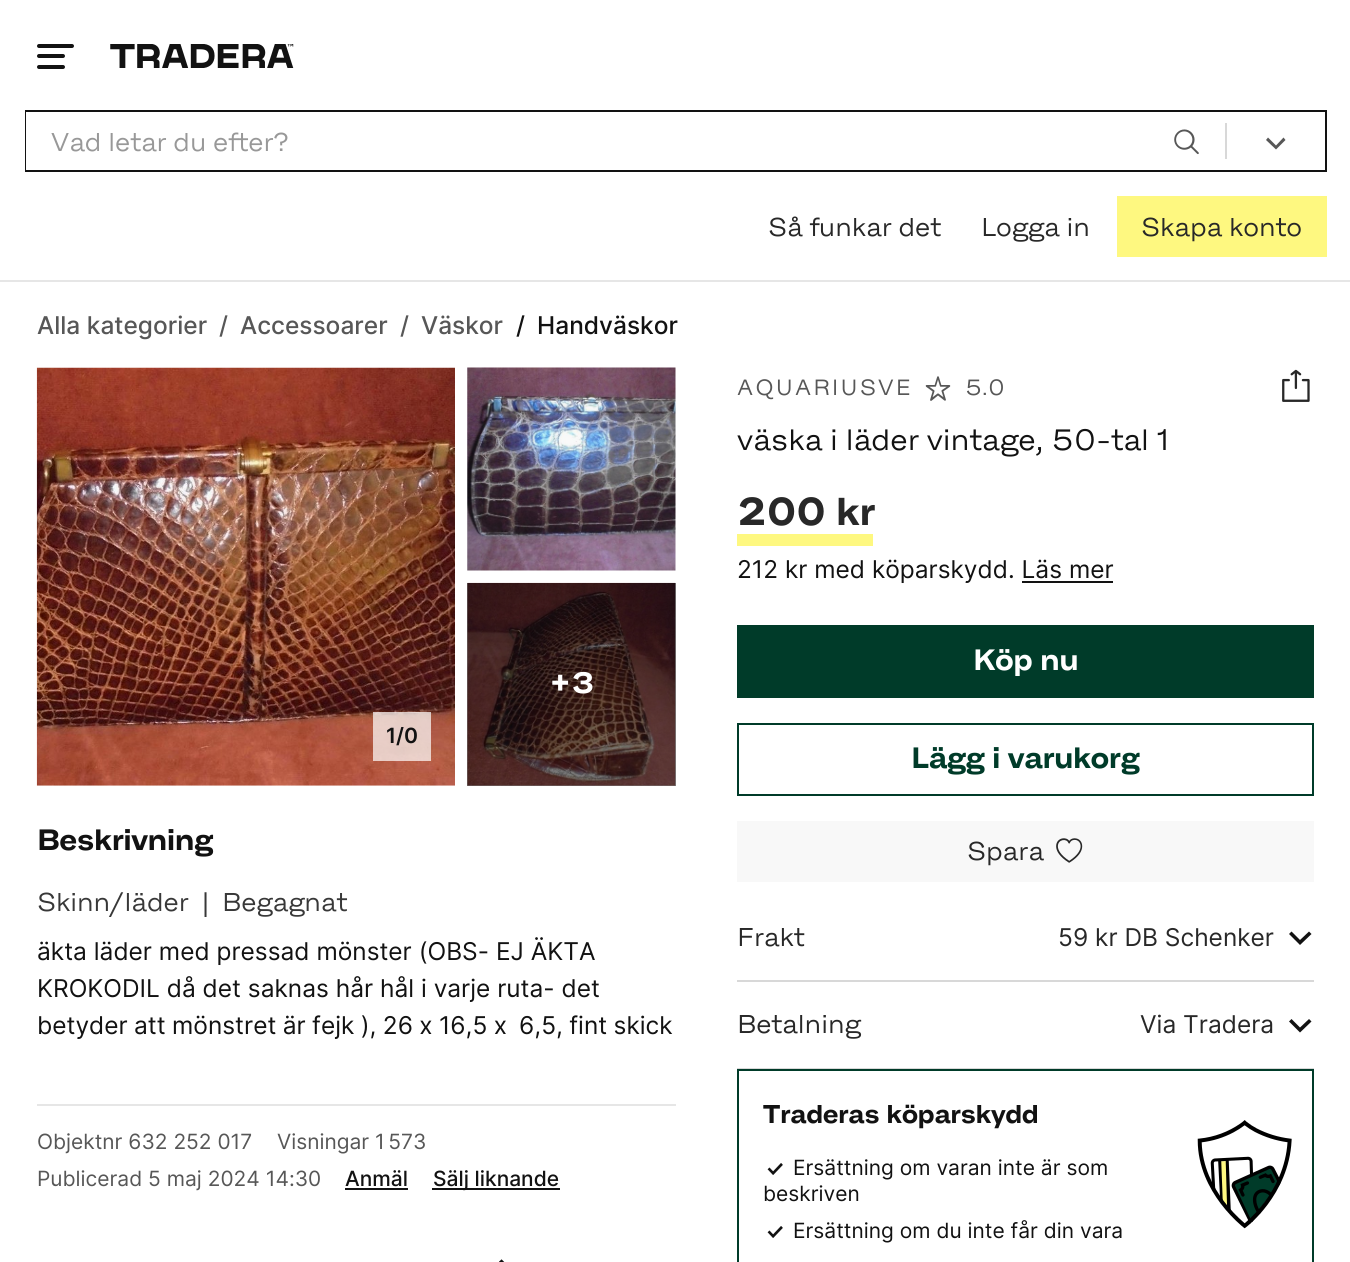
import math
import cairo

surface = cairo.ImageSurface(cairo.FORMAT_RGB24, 1350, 1262)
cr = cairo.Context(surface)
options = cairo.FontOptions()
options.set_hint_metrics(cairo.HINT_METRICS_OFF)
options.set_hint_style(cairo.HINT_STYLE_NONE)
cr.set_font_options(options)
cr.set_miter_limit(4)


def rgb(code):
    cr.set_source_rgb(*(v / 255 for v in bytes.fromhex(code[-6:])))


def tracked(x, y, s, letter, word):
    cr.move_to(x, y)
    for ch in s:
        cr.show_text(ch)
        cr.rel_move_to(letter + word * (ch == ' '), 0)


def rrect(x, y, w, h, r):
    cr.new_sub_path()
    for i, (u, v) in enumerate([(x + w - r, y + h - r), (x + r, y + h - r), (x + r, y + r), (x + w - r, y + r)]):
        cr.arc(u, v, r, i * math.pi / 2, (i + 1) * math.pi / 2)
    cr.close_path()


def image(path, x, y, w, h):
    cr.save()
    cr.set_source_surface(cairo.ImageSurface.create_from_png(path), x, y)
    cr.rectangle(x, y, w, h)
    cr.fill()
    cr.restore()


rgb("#ffffff")
cr.paint()
rgb("#808080")
cr.rectangle(467, 583, 209, 203)
cr.fill()
rgb("#e6e6e6")
cr.rectangle(0, 280, 1350, 2)
cr.fill()
rgb("#121212")
rrect(37, 54, 28, 4, 2)
cr.fill()
rrect(37, 44, 37, 4, 2)
cr.fill()
rrect(37, 65, 28, 4, 2)
cr.fill()
image("img/1.png", 110, 44, 184, 24)
cr.rectangle(26, 111, 1300, 60)
cr.stroke()
rgb("#ffffff")
cr.rectangle(26, 112, 1, 58)
cr.fill()
image("img/2.png", 1174, 129, 25, 26)
rgb("#d8d8d8")
cr.rectangle(1225, 123, 2, 36)
cr.fill()
rgb("#575757")
cr.new_path()
cr.move_to(1276, 145.5)
cr.line_to(1283.5, 137.5)
cr.line_to(1285.5, 140)
cr.line_to(1276, 149.5)
cr.line_to(1266, 140)
cr.line_to(1268, 137.5)
cr.close_path()
cr.fill()
rgb("#fef880")
cr.rectangle(1117, 196, 210, 61)
cr.fill()
image("img/3.png", 467, 367, 209, 204)
image("img/4.png", 467, 582, 209, 204)
image("img/5.png", 36, 367, 419, 419)
cr.set_source_rgba(1, 1, 1, 0.7)
cr.rectangle(373, 712, 58, 49)
cr.fill()
rgb("#e6e6e6")
cr.rectangle(37, 1104, 639, 2)
cr.fill()
rgb("#121212")
cr.rectangle(345, 1188, 63, 2)
cr.rectangle(432, 1188, 128, 2)
cr.fill()
image("img/6.png", 499, 1259, 6, 3)
image("img/7.png", 925, 376, 26, 25)
image("img/8.png", 1282, 369, 28, 33)
for x, y, w, h, color in [
    (737, 534, 136, 12, "#fef880"),
    (1022, 581, 91, 2, "#121212"),
    (737, 625, 577, 73, "#003b29"),
]:
    rgb(color)
    cr.rectangle(x, y, w, h)
    cr.fill()
cr.rectangle(738, 724, 575, 71)
cr.stroke()
rgb("#f8f8f8")
cr.rectangle(737, 821, 577, 61)
cr.fill()
image("img/9.png", 1056, 838, 27, 25)
rgb("#d8d8d8")
cr.rectangle(737, 980, 577, 2)
cr.fill()
rgb("#121212")
cr.new_path()
cr.move_to(1300, 940)
cr.line_to(1309, 931.5)
cr.line_to(1311.5, 934)
cr.line_to(1300, 945)
cr.line_to(1289, 934)
cr.line_to(1291.5, 931.5)
cr.close_path()
cr.fill()
rgb("#d8d8d8")
cr.rectangle(737, 1068, 577, 1)
cr.fill()
rgb("#121212")
cr.new_path()
cr.move_to(1300, 1027.5)
cr.line_to(1309, 1019)
cr.line_to(1311.5, 1021.5)
cr.line_to(1300, 1032.5)
cr.line_to(1289, 1021.5)
cr.line_to(1291.5, 1019)
cr.close_path()
cr.fill()
cr.rectangle(738, 1070, 575, 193)
rgb("#003b29")
cr.stroke()
image("img/10.png", 767, 1163, 16, 12)
image("img/10.png", 767, 1226, 16, 12)
image("img/11.png", 1197, 1120, 95, 109)
cr.select_font_face("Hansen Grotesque")
cr.set_font_size(24.5)
rgb("#989898")
cr.move_to(51, 151)
cr.show_text("Vad letar du efter?")
rgb("#282828")
for x, y, s in [
    (768, 236, "Så funkar det"),
    (981, 236, "Logga in"),
    (1141, 236, "Skapa konto"),
]:
    cr.move_to(x, y)
    cr.show_text(s)
cr.select_font_face("Inter Medium")
rgb("#575757")
for x, y, s in [
    (37, 334, "Alla kategorier"),
    (219, 334, "/"),
    (240, 334, "Accessoarer"),
    (400, 334, "/"),
    (421, 334, "Väskor"),
]:
    cr.move_to(x, y)
    cr.show_text(s)
rgb("#121212")
cr.move_to(516, 334)
cr.show_text("/")
cr.move_to(537, 334)
cr.show_text("Handväskor")
cr.select_font_face("Hansen Grotesque", cairo.FONT_SLANT_NORMAL, cairo.FONT_WEIGHT_BOLD)
cr.set_font_size(28)
rgb("#ffffff")
cr.move_to(549, 693)
cr.show_text("+3")
cr.select_font_face("Inter SemiBold")
cr.set_font_size(21)
rgb("#121212")
cr.move_to(386, 743)
cr.show_text("1/0")
cr.select_font_face("Hansen Grotesque", cairo.FONT_SLANT_NORMAL, cairo.FONT_WEIGHT_BOLD)
cr.set_font_size(28)
cr.move_to(37, 850)
cr.show_text("Beskrivning")
cr.select_font_face("Hansen Grotesque")
cr.set_font_size(24.5)
rgb("#383838")
for x, y, s in [
    (37, 911, "Skinn/läder"),
    (201, 911, "|"),
    (222, 911, "Begagnat"),
]:
    cr.move_to(x, y)
    cr.show_text(s)
cr.select_font_face("Inter")
rgb("#121212")
cr.move_to(37, 960)
cr.show_text("äkta läder med pressad mönster (OBS- EJ ÄKTA")
cr.move_to(37, 997)
cr.show_text("KROKODIL då det saknas hår hål i varje ruta- det")
tracked(37, 1034, "betyder att mönstret är fejk ), 26 x 16,5 x", 0, -0.5)
tracked(519, 1034, "6,5, fint skick", 0, -0.5)
cr.set_font_size(21)
rgb("#575757")
for x, y, s in [
    (37, 1149, "Objektnr 632 252 017"),
    (277, 1149, "Visningar 1 573"),
    (37, 1186, "Publicerad 5 maj 2024 14:30"),
]:
    cr.move_to(x, y)
    cr.show_text(s)
cr.select_font_face("Inter Medium")
rgb("#121212")
cr.move_to(345, 1186)
cr.show_text("Anmäl")
cr.move_to(433, 1186)
cr.show_text("Sälj liknande")
cr.select_font_face("Hansen Grotesque")
rgb("#575757")
tracked(737, 395, "AQUARIUSVE", 2.1, 0)
cr.move_to(965, 395)
cr.show_text("5.0")
cr.set_font_size(28)
rgb("#121212")
cr.move_to(737, 450)
cr.show_text("väska i läder vintage, 50-tal 1")
cr.select_font_face("Hansen Grotesque", cairo.FONT_SLANT_NORMAL, cairo.FONT_WEIGHT_BOLD)
cr.set_font_size(37)
rgb("#282828")
cr.move_to(737, 525)
cr.show_text("200 kr")
cr.select_font_face("Inter")
cr.set_font_size(24.5)
rgb("#121212")
cr.move_to(737, 578)
cr.show_text("212 kr med köparskydd. Läs mer")
cr.select_font_face("Hansen Grotesque", cairo.FONT_SLANT_NORMAL, cairo.FONT_WEIGHT_BOLD)
cr.set_font_size(28)
rgb("#ffffff")
cr.move_to(973, 670)
cr.show_text("Köp nu")
rgb("#003b29")
cr.move_to(911, 768)
cr.show_text("Lägg i varukorg")
cr.select_font_face("Hansen Grotesque")
cr.set_font_size(24.5)
rgb("#282828")
cr.move_to(967, 860)
cr.show_text("Spara")
cr.move_to(737, 946)
cr.show_text("Frakt")
cr.select_font_face("Inter")
cr.move_to(1058, 946)
cr.show_text("59 kr DB Schenker")
cr.select_font_face("Hansen Grotesque")
cr.move_to(737, 1033)
cr.show_text("Betalning")
cr.select_font_face("Inter")
cr.move_to(1140, 1033)
cr.show_text("Via Tradera")
cr.select_font_face("Hansen Grotesque", cairo.FONT_SLANT_NORMAL, cairo.FONT_WEIGHT_BOLD)
rgb("#121212")
cr.move_to(763, 1123)
cr.show_text("Traderas köparskydd")
cr.select_font_face("Inter")
cr.set_font_size(21)
for x, y, s in [
    (793, 1175, "Ersättning om varan inte är som"),
    (763, 1201, "beskriven"),
    (793, 1238, "Ersättning om du inte får din vara"),
]:
    cr.move_to(x, y)
    cr.show_text(s)
surface.write_to_png("page.png")
